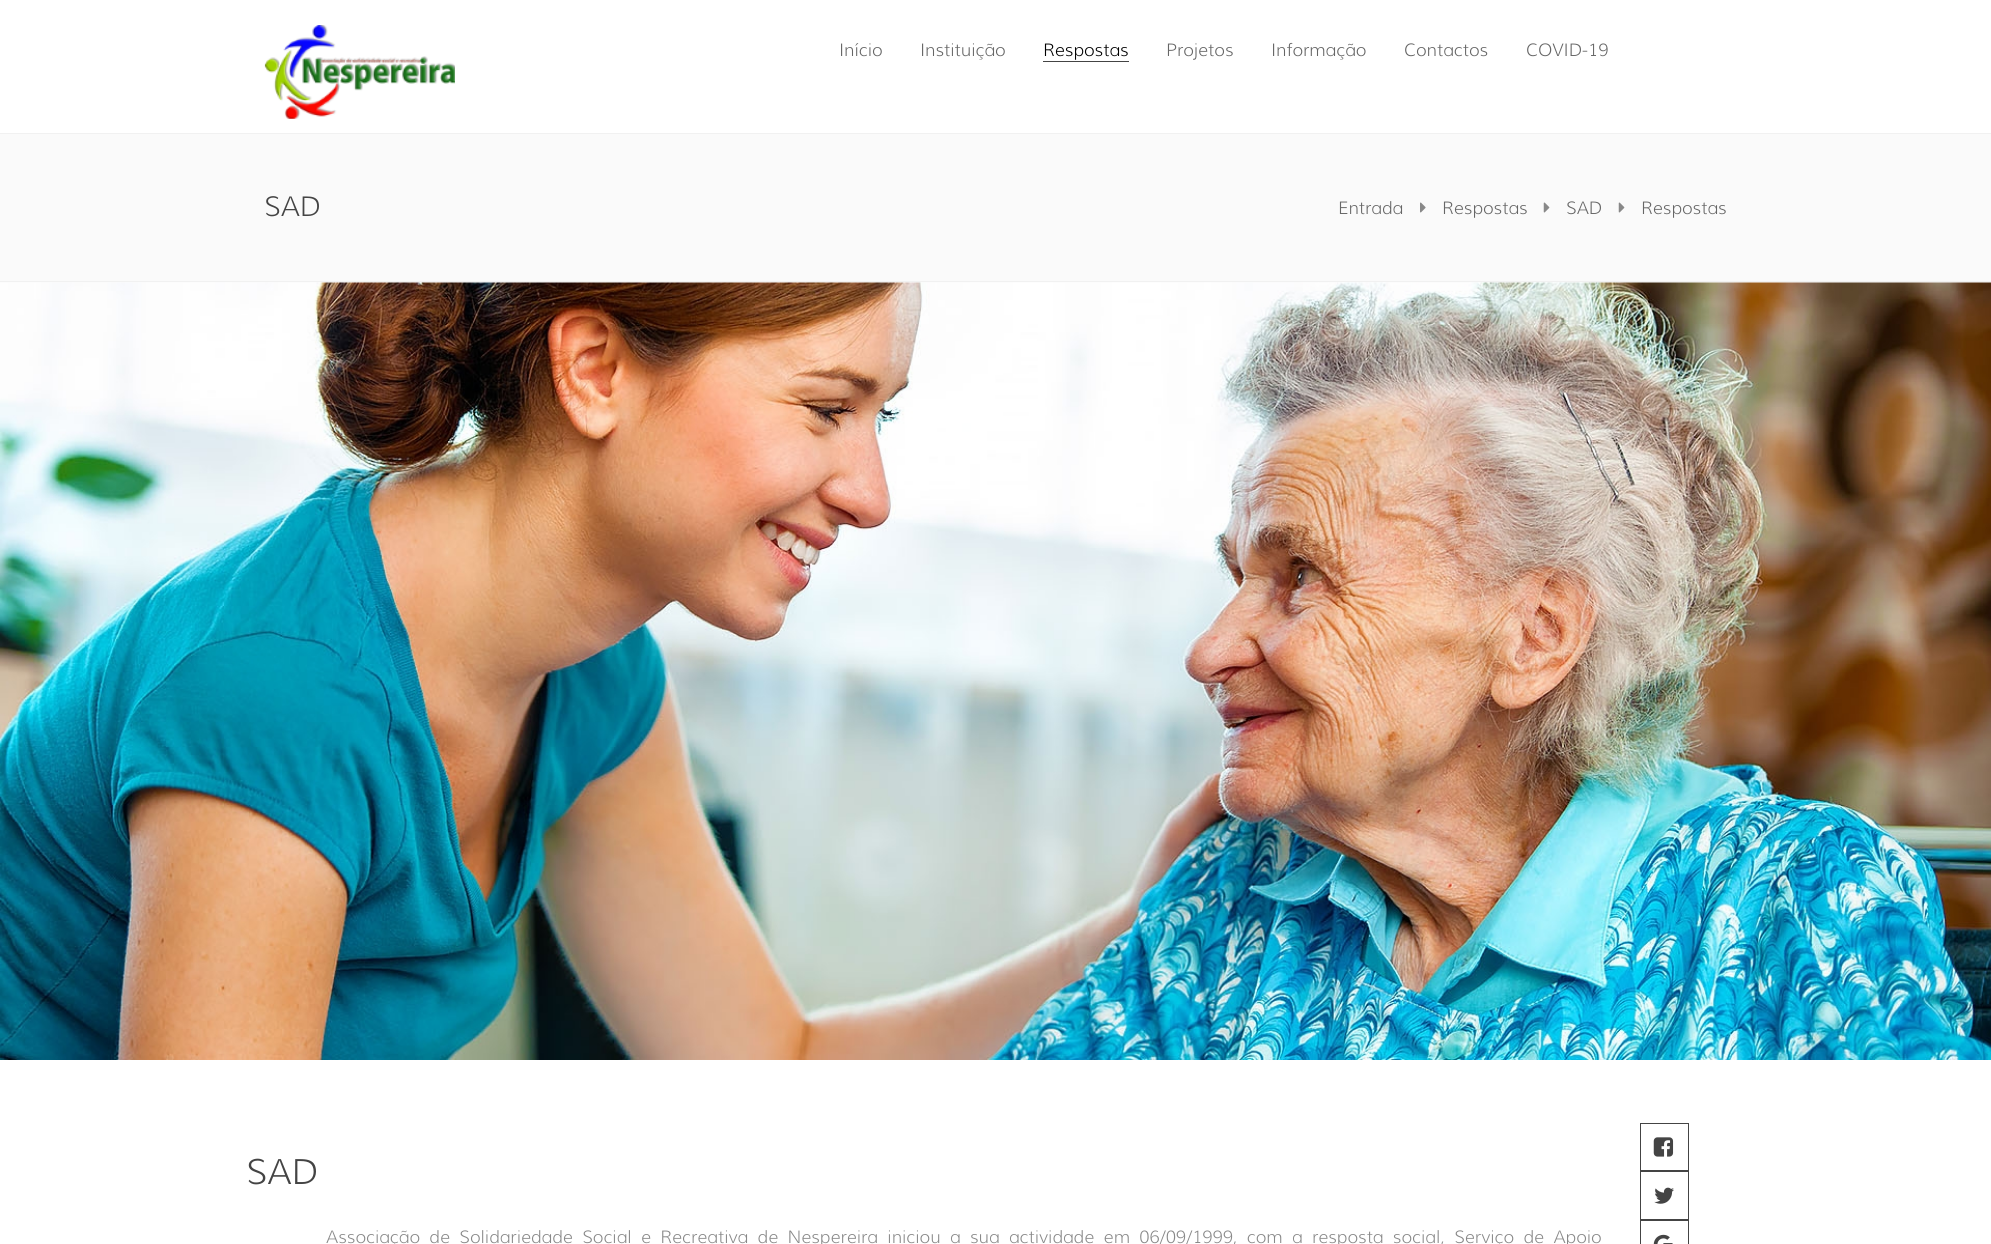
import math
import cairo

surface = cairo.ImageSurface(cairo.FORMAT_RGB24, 1991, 1244)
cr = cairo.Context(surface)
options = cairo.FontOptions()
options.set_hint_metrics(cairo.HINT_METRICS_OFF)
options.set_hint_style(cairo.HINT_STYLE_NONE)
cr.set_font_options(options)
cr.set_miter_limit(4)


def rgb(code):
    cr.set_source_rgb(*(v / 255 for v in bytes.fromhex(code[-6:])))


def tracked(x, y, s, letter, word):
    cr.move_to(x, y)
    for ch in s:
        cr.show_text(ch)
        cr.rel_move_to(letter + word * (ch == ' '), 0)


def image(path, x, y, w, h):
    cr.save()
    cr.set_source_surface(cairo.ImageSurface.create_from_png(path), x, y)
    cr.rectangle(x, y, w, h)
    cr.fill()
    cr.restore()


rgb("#ffffff")
cr.paint()
image("img/1.png", 264, 25, 191, 94)
for x, y, w, h, color in [
    (1043, 61, 86, 1, "#444444"),
    (0, 134, 1991, 149, "#fafafa"),
    (0, 133, 1991, 1, "#f1f1f1"),
    (0, 281, 1991, 1, "#f1f1f1"),
]:
    rgb(color)
    cr.rectangle(x, y, w, h)
    cr.fill()
image("img/2.png", 1420, 202, 6, 11)
image("img/3.png", 1543, 202, 7, 11)
image("img/3.png", 1618, 202, 7, 11)
image("img/4.png", 0, 282, 1991, 778)
cr.rectangle(1640.5, 1123.5, 48, 47)
rgb("#444444")
cr.set_line_width(1)
cr.stroke()
image("img/5.png", 1653, 1137, 21, 20)
cr.rectangle(1640.5, 1171.5, 48, 48)
cr.stroke()
image("img/6.png", 1654, 1187, 20, 17)
cr.rectangle(1640.5, 1220.5, 48, 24)
cr.stroke()
image("img/7.png", 1653, 1234, 20, 10)
cr.select_font_face("Muli Light")
cr.set_font_size(17.5)
rgb("#666666")
cr.move_to(839, 56)
cr.show_text("Início")
cr.move_to(920, 56)
cr.show_text("Instituição")
rgb("#000000")
cr.move_to(1043, 56)
cr.show_text("Respostas")
rgb("#666666")
for x, y, s in [
    (1166, 56, "Projetos"),
    (1271, 56, "Informação"),
    (1404, 56, "Contactos"),
    (1526, 56, "COVID-19"),
]:
    cr.move_to(x, y)
    cr.show_text(s)
cr.set_font_size(27.5)
rgb("#444444")
cr.move_to(264, 216)
cr.show_text("SAD")
cr.set_font_size(17.5)
rgb("#666666")
for x, y, s in [
    (1338, 214, "Entrada"),
    (1442, 214, "Respostas"),
    (1566, 214, "SAD"),
    (1641, 214, "Respostas"),
]:
    cr.move_to(x, y)
    cr.show_text(s)
cr.set_font_size(35)
rgb("#444444")
cr.move_to(246, 1184)
cr.show_text("SAD")
cr.set_font_size(17.5)
rgb("#888888")
tracked(326, 1243, "Associação de Solidariedade Social e Recreativa de Nespereira iniciou a sua actividade em 06/09/1999, com a resposta social, Serviço de Apoio", 0, 4.25)
surface.write_to_png("page.png")
